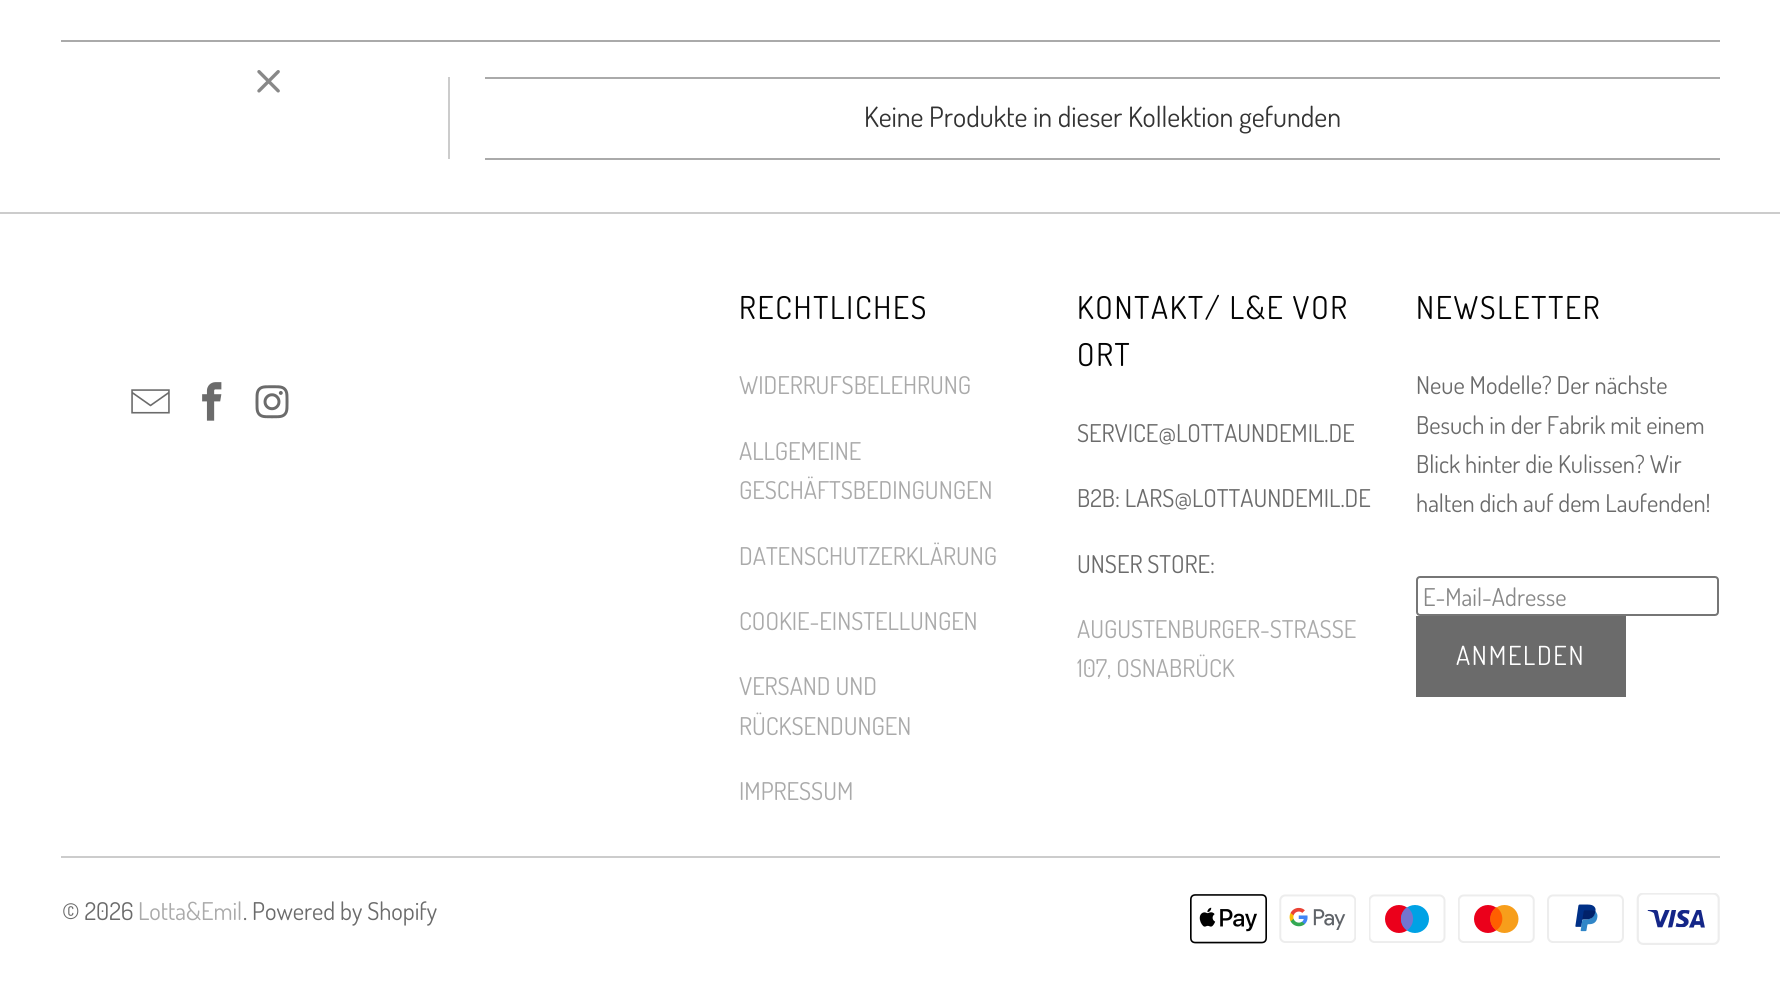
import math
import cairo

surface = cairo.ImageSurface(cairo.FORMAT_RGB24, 1780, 1002)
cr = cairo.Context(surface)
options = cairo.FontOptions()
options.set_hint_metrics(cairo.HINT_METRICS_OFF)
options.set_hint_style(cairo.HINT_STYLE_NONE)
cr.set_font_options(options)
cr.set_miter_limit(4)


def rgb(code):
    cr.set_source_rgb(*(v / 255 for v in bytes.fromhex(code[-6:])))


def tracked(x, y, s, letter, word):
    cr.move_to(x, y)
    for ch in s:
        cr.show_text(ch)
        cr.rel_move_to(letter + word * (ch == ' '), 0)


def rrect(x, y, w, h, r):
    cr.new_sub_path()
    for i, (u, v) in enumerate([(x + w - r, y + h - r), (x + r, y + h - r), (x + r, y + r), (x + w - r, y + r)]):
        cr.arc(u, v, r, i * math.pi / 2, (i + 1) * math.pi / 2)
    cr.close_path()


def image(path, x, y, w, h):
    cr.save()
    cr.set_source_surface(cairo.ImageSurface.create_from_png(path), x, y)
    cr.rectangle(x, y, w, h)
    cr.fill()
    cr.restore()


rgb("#ffffff")
cr.paint()
rgb("#aaaaaa")
cr.rectangle(61, 40, 1659, 2)
cr.fill()
rgb("#cccccc")
cr.rectangle(448, 77, 2, 82)
cr.fill()
image("img/1.png", 257, 70, 23, 23)
for x, y, w, h, color in [
    (485, 77, 1235, 2, "#aaaaaa"),
    (485, 158, 1235, 2, "#aaaaaa"),
    (0, 212, 1780, 2, "#cccccc"),
]:
    rgb(color)
    cr.rectangle(x, y, w, h)
    cr.fill()
image("img/2.png", 131, 389, 39, 25)
image("img/3.png", 202, 382, 20, 39)
image("img/4.png", 255, 385, 34, 34)
rrect(1417, 577, 301, 38, 3)
rgb("#767676")
cr.stroke()
rgb("#6b6b6b")
cr.rectangle(1416, 616, 210, 81)
cr.fill()
rgb("#cccccc")
cr.rectangle(61, 856, 1659, 2)
cr.fill()
image("img/5.png", 1190, 894, 77, 50)
image("img/6.png", 1279, 894, 77, 49)
image("img/7.png", 1369, 894, 77, 49)
image("img/8.png", 1458, 894, 77, 49)
image("img/9.png", 1547, 894, 77, 49)
image("img/10.png", 1636, 893, 84, 52)
cr.select_font_face("Dosis")
cr.set_font_size(28)
rgb("#333333")
cr.move_to(864, 127)
cr.show_text("Keine Produkte in dieser Kollektion gefunden")
cr.set_font_size(31.5)
rgb("#040404")
tracked(739, 319, "RECHTLICHES", 1.75, 0)
cr.set_font_size(24.5)
rgb("#aaaaaa")
for x, y, s in [
    (739, 394, "WIDERRUFSBELEHRUNG"),
    (739, 460, "ALLGEMEINE"),
    (739, 499, "GESCHÄFTSBEDINGUNGEN"),
    (739, 565, "DATENSCHUTZERKLÄRUNG"),
    (739, 630, "COOKIE-EINSTELLUNGEN"),
    (739, 695, "VERSAND UND"),
    (739, 735, "RÜCKSENDUNGEN"),
    (739, 800, "IMPRESSUM"),
]:
    cr.move_to(x, y)
    cr.show_text(s)
cr.set_font_size(31.5)
rgb("#040404")
tracked(1077, 319, "KONTAKT/ L&E VOR", 1.75, 0)
tracked(1077, 366, "ORT", 1.75, 0)
cr.set_font_size(24.5)
rgb("#6b6b6b")
for x, y, s in [
    (1077, 442, "SERVICE@LOTTAUNDEMIL.DE"),
    (1077, 507, "B2B: LARS@LOTTAUNDEMIL.DE"),
    (1077, 573, "UNSER STORE:"),
]:
    cr.move_to(x, y)
    cr.show_text(s)
rgb("#aaaaaa")
cr.move_to(1077, 638)
cr.show_text("AUGUSTENBURGER-STRASSE")
cr.move_to(1077, 677)
cr.show_text("107, OSNABRÜCK")
cr.set_font_size(31.5)
rgb("#040404")
tracked(1416, 319, "NEWSLETTER", 1.75, 0)
cr.set_font_size(24.5)
rgb("#6b6b6b")
for x, y, s in [
    (1416, 394, "Neue Modelle? Der nächste"),
    (1416, 434, "Besuch in der Fabrik mit einem"),
    (1416, 473, "Blick hinter die Kulissen? Wir"),
    (1416, 512, "halten dich auf dem Laufenden!"),
]:
    cr.move_to(x, y)
    cr.show_text(s)
rgb("#888888")
cr.move_to(1423, 606)
cr.show_text("E-Mail-Adresse")
cr.set_font_size(26.25)
rgb("#ffffff")
tracked(1456, 665, "ANMELDEN", 1.75, 0)
cr.set_font_size(24.5)
rgb("#6b6b6b")
cr.move_to(62, 920)
cr.show_text("© 2026")
rgb("#aaaaaa")
cr.move_to(138, 920)
cr.show_text("Lotta&Emil")
rgb("#6b6b6b")
cr.move_to(243, 920)
cr.show_text(". Powered by Shopify")
surface.write_to_png("page.png")
